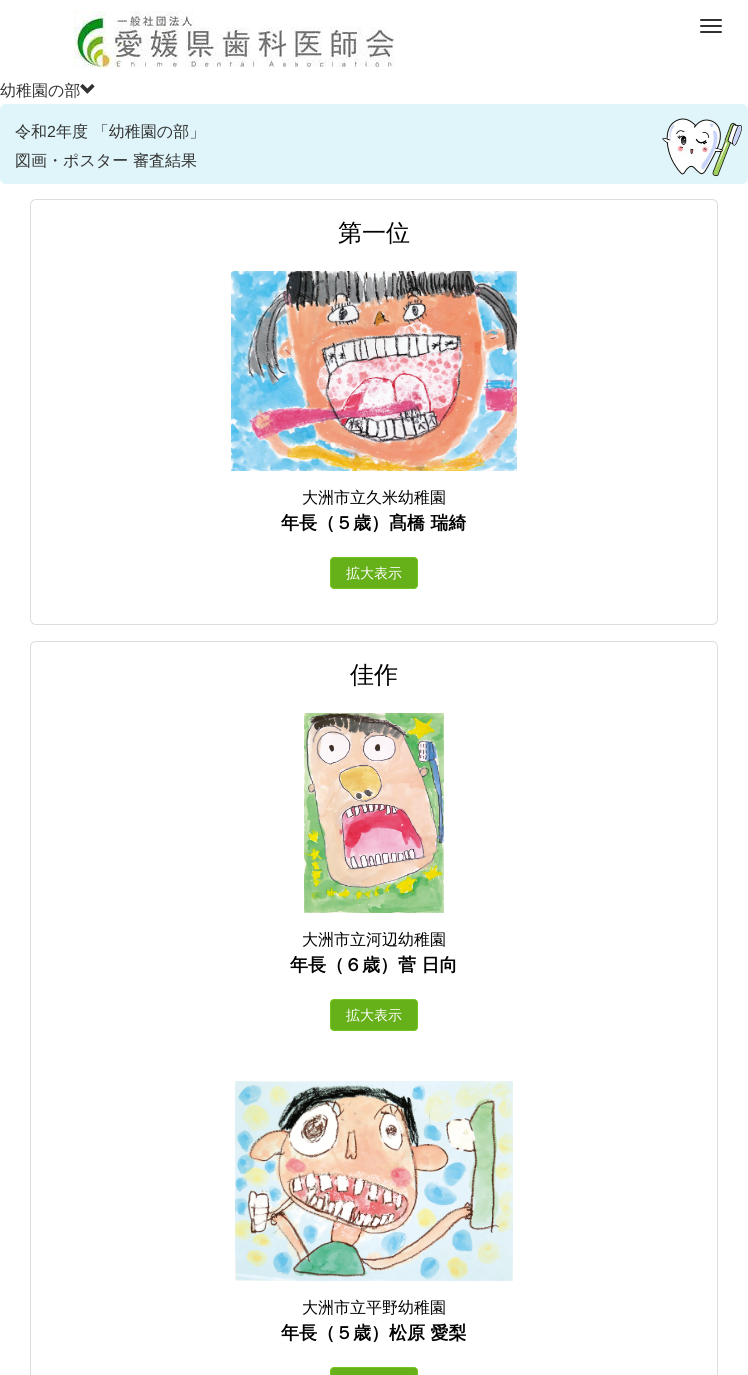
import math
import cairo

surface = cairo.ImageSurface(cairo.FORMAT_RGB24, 748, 1375)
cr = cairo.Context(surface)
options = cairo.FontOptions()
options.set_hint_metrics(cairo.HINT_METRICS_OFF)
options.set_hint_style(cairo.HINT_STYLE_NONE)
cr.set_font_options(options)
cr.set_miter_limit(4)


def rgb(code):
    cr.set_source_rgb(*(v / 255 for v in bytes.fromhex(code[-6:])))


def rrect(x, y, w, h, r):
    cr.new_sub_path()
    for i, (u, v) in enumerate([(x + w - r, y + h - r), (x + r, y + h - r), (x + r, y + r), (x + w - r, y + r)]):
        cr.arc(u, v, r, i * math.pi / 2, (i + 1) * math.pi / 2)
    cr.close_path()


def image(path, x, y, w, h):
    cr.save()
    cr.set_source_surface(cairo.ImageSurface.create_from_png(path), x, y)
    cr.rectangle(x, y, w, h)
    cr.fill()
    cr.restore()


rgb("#ffffff")
cr.paint()
image("img/1.png", 74, 11, 320, 59)
rgb("#313131")
rrect(700, 19, 22, 2, 1)
cr.fill()
rrect(700, 25, 22, 2, 1)
cr.fill()
rrect(700, 31, 22, 2, 1)
cr.fill()
image("img/2.png", 80, 83, 15, 11)
rgb("#dff5f9")
rrect(0, 104, 748, 80, 6)
cr.fill()
image("img/3.png", 662, 118, 80, 59)
rrect(30.5, 199.5, 687, 425, 5.5)
rgb("#dddddd")
cr.set_line_width(1)
cr.stroke()
image("img/4.png", 231, 271, 286, 200)
rgb("#66b01a")
rrect(330.5, 557.5, 87, 31, 3.5)
cr.fill_preserve()
rgb("#73c61d")
cr.stroke()
rrect(30.5, 641.5, 687, 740, 5.5)
rgb("#dddddd")
cr.stroke()
image("img/5.png", 304, 713, 140, 200)
rgb("#66b01a")
rrect(330.5, 999.5, 87, 31, 3.5)
cr.fill_preserve()
rgb("#73c61d")
cr.stroke()
image("img/6.png", 235, 1081, 278, 200)
rgb("#66b01a")
rrect(330.5, 1367.5, 87, 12, 3.5)
cr.fill_preserve()
rgb("#73c61d")
cr.stroke()
cr.select_font_face("WenQuanYi Zen Hei Medium")
cr.set_font_size(16)
rgb("#333333")
cr.move_to(0, 96)
cr.show_text("幼稚園の部")
cr.move_to(15, 137)
cr.show_text("令和")
cr.select_font_face("Liberation Sans")
cr.move_to(47, 137)
cr.show_text("2")
cr.select_font_face("WenQuanYi Zen Hei Medium")
cr.move_to(56, 137)
cr.show_text("年度 「幼稚園の部」")
cr.move_to(15, 166)
cr.show_text("図画・ポスター 審査結果")
cr.set_font_size(24)
rgb("#000000")
cr.move_to(338, 241)
cr.show_text("第一位")
cr.set_font_size(16)
cr.move_to(302, 503)
cr.show_text("大洲市立久米幼稚園")
cr.select_font_face("WenQuanYi Zen Hei", cairo.FONT_SLANT_NORMAL, cairo.FONT_WEIGHT_BOLD)
cr.set_font_size(18)
cr.move_to(281, 529)
cr.show_text("年長（５歳）髙橋 瑞綺")
cr.select_font_face("WenQuanYi Zen Hei Medium")
cr.set_font_size(14)
rgb("#ffffff")
cr.move_to(346, 578)
cr.show_text("拡大表示")
cr.set_font_size(24)
rgb("#000000")
cr.move_to(350, 683)
cr.show_text("佳作")
cr.set_font_size(16)
cr.move_to(302, 945)
cr.show_text("大洲市立河辺幼稚園")
cr.select_font_face("WenQuanYi Zen Hei", cairo.FONT_SLANT_NORMAL, cairo.FONT_WEIGHT_BOLD)
cr.set_font_size(18)
cr.move_to(290, 971)
cr.show_text("年長（６歳）菅 日向")
cr.select_font_face("WenQuanYi Zen Hei Medium")
cr.set_font_size(14)
rgb("#ffffff")
cr.move_to(346, 1020)
cr.show_text("拡大表示")
cr.set_font_size(16)
rgb("#000000")
cr.move_to(302, 1313)
cr.show_text("大洲市立平野幼稚園")
cr.select_font_face("WenQuanYi Zen Hei", cairo.FONT_SLANT_NORMAL, cairo.FONT_WEIGHT_BOLD)
cr.set_font_size(18)
cr.move_to(281, 1339)
cr.show_text("年長（５歳）松原 愛梨")
surface.write_to_png("page.png")
